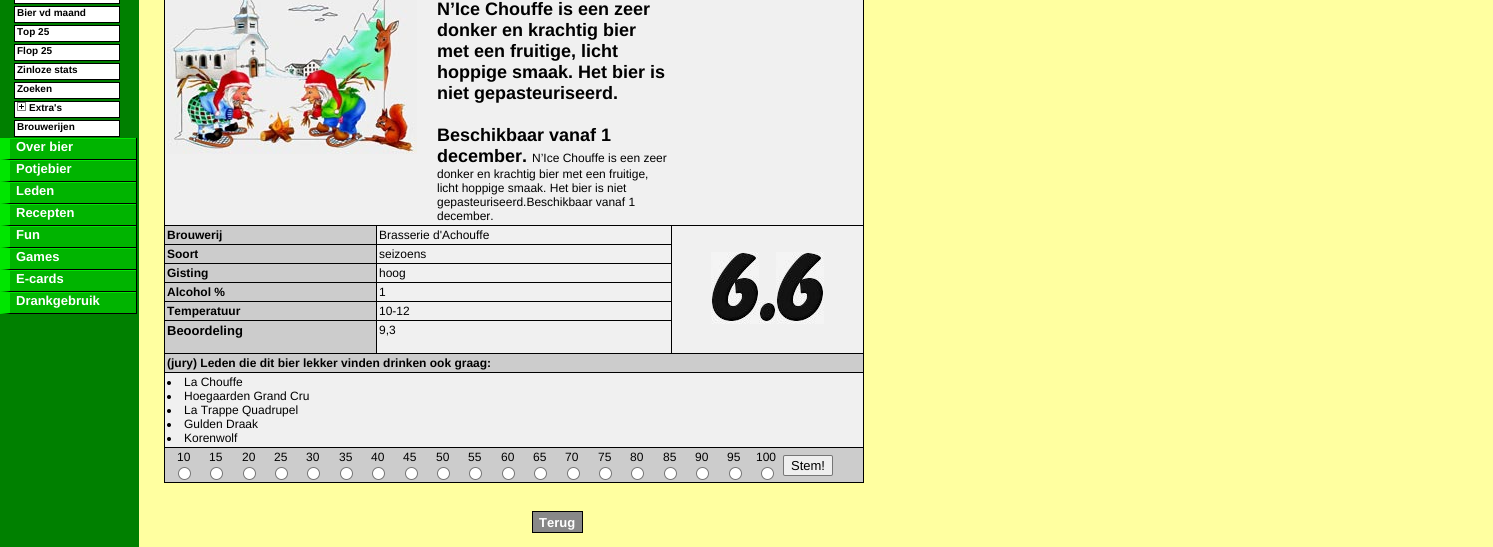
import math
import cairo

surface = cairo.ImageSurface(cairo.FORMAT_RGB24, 1493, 547)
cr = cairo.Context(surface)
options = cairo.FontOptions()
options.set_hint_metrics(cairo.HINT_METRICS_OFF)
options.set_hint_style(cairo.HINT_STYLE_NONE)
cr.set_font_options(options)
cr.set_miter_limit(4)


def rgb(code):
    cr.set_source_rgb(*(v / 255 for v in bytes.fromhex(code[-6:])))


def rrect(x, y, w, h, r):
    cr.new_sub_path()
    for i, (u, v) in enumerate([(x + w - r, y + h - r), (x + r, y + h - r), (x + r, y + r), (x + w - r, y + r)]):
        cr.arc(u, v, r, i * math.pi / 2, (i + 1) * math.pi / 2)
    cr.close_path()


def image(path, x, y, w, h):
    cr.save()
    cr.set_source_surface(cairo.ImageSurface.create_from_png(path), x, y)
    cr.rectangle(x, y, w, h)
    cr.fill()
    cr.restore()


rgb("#ffffa0")
cr.paint()
rgb("#008000")
cr.rectangle(0, 0, 139, 547)
cr.fill()
rgb("#ffffff")
cr.rectangle(14.5, -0.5, 105, 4)
cr.fill_preserve()
rgb("#000000")
cr.set_line_width(1)
cr.stroke()
rgb("#ffffff")
cr.rectangle(14.5, 6.5, 105, 16)
cr.fill_preserve()
rgb("#000000")
cr.stroke()
rgb("#ffffff")
cr.rectangle(14.5, 25.5, 105, 16)
cr.fill_preserve()
rgb("#000000")
cr.stroke()
rgb("#ffffff")
cr.rectangle(14.5, 44.5, 105, 16)
cr.fill_preserve()
rgb("#000000")
cr.stroke()
rgb("#ffffff")
cr.rectangle(14.5, 63.5, 105, 16)
cr.fill_preserve()
rgb("#000000")
cr.stroke()
rgb("#ffffff")
cr.rectangle(14.5, 82.5, 105, 16)
cr.fill_preserve()
rgb("#000000")
cr.stroke()
rgb("#ffffff")
cr.rectangle(14.5, 101.5, 105, 16)
cr.fill_preserve()
rgb("#000000")
cr.stroke()
image("img/1.png", 17, 102, 9, 9)
rgb("#ffffff")
cr.rectangle(14.5, 120.5, 105, 16)
cr.fill_preserve()
rgb("#000000")
cr.stroke()
for x, y, w, h, color in [
    (10, 139, 126, 20, "#00b400"),
    (0, 138, 137, 1, "#00e600"),
    (136, 138, 1, 22, "#000000"),
]:
    rgb(color)
    cr.rectangle(x, y, w, h)
    cr.fill()
cr.new_path()
cr.move_to(137, 160)
cr.line_to(0, 160)
cr.line_to(10, 159)
cr.line_to(136, 159)
cr.close_path()
cr.fill()
rgb("#00e600")
cr.new_path()
cr.move_to(0, 160)
cr.line_to(0, 138)
cr.line_to(10, 139)
cr.line_to(10, 159)
cr.close_path()
cr.fill()
for x, y, w, h, color in [
    (10, 161, 126, 20, "#00b400"),
    (0, 160, 137, 1, "#00e600"),
    (136, 160, 1, 22, "#000000"),
]:
    rgb(color)
    cr.rectangle(x, y, w, h)
    cr.fill()
cr.new_path()
cr.move_to(137, 182)
cr.line_to(0, 182)
cr.line_to(10, 181)
cr.line_to(136, 181)
cr.close_path()
cr.fill()
rgb("#00e600")
cr.new_path()
cr.move_to(0, 182)
cr.line_to(0, 160)
cr.line_to(10, 161)
cr.line_to(10, 181)
cr.close_path()
cr.fill()
for x, y, w, h, color in [
    (10, 183, 126, 20, "#00b400"),
    (0, 182, 137, 1, "#00e600"),
    (136, 182, 1, 22, "#000000"),
]:
    rgb(color)
    cr.rectangle(x, y, w, h)
    cr.fill()
cr.new_path()
cr.move_to(137, 204)
cr.line_to(0, 204)
cr.line_to(10, 203)
cr.line_to(136, 203)
cr.close_path()
cr.fill()
rgb("#00e600")
cr.new_path()
cr.move_to(0, 204)
cr.line_to(0, 182)
cr.line_to(10, 183)
cr.line_to(10, 203)
cr.close_path()
cr.fill()
for x, y, w, h, color in [
    (10, 205, 126, 20, "#00b400"),
    (0, 204, 137, 1, "#00e600"),
    (136, 204, 1, 22, "#000000"),
]:
    rgb(color)
    cr.rectangle(x, y, w, h)
    cr.fill()
cr.new_path()
cr.move_to(137, 226)
cr.line_to(0, 226)
cr.line_to(10, 225)
cr.line_to(136, 225)
cr.close_path()
cr.fill()
rgb("#00e600")
cr.new_path()
cr.move_to(0, 226)
cr.line_to(0, 204)
cr.line_to(10, 205)
cr.line_to(10, 225)
cr.close_path()
cr.fill()
for x, y, w, h, color in [
    (10, 227, 126, 20, "#00b400"),
    (0, 226, 137, 1, "#00e600"),
    (136, 226, 1, 22, "#000000"),
]:
    rgb(color)
    cr.rectangle(x, y, w, h)
    cr.fill()
cr.new_path()
cr.move_to(137, 248)
cr.line_to(0, 248)
cr.line_to(10, 247)
cr.line_to(136, 247)
cr.close_path()
cr.fill()
rgb("#00e600")
cr.new_path()
cr.move_to(0, 248)
cr.line_to(0, 226)
cr.line_to(10, 227)
cr.line_to(10, 247)
cr.close_path()
cr.fill()
for x, y, w, h, color in [
    (10, 249, 126, 20, "#00b400"),
    (0, 248, 137, 1, "#00e600"),
    (136, 248, 1, 22, "#000000"),
]:
    rgb(color)
    cr.rectangle(x, y, w, h)
    cr.fill()
cr.new_path()
cr.move_to(137, 270)
cr.line_to(0, 270)
cr.line_to(10, 269)
cr.line_to(136, 269)
cr.close_path()
cr.fill()
rgb("#00e600")
cr.new_path()
cr.move_to(0, 270)
cr.line_to(0, 248)
cr.line_to(10, 249)
cr.line_to(10, 269)
cr.close_path()
cr.fill()
for x, y, w, h, color in [
    (10, 271, 126, 20, "#00b400"),
    (0, 270, 137, 1, "#00e600"),
    (136, 270, 1, 22, "#000000"),
]:
    rgb(color)
    cr.rectangle(x, y, w, h)
    cr.fill()
cr.new_path()
cr.move_to(137, 292)
cr.line_to(0, 292)
cr.line_to(10, 291)
cr.line_to(136, 291)
cr.close_path()
cr.fill()
rgb("#00e600")
cr.new_path()
cr.move_to(0, 292)
cr.line_to(0, 270)
cr.line_to(10, 271)
cr.line_to(10, 291)
cr.close_path()
cr.fill()
for x, y, w, h, color in [
    (10, 293, 126, 20, "#00b400"),
    (0, 292, 137, 1, "#00e600"),
    (136, 292, 1, 22, "#000000"),
]:
    rgb(color)
    cr.rectangle(x, y, w, h)
    cr.fill()
cr.new_path()
cr.move_to(137, 314)
cr.line_to(0, 314)
cr.line_to(10, 313)
cr.line_to(136, 313)
cr.close_path()
cr.fill()
rgb("#00e600")
cr.new_path()
cr.move_to(0, 314)
cr.line_to(0, 292)
cr.line_to(10, 293)
cr.line_to(10, 313)
cr.close_path()
cr.fill()
rgb("#000000")
cr.rectangle(164, 0, 700, 483)
cr.fill()
rgb("#f0f0f0")
cr.rectangle(165, 0, 698, 225)
cr.fill()
image("img/2.png", 167, 0, 250, 154)
for x, y, w, h, color in [
    (165, 226, 211, 18, "#cccccc"),
    (377, 226, 294, 18, "#f0f0f0"),
    (672, 226, 191, 127, "#f0f0f0"),
]:
    rgb(color)
    cr.rectangle(x, y, w, h)
    cr.fill()
image("img/3.png", 711, 252, 48, 72)
image("img/4.png", 759, 300, 16, 24)
image("img/3.png", 776, 252, 48, 72)
for x, y, w, h, color in [
    (165, 245, 211, 18, "#cccccc"),
    (377, 245, 294, 18, "#f0f0f0"),
    (165, 264, 211, 18, "#cccccc"),
    (377, 264, 294, 18, "#f0f0f0"),
    (165, 283, 211, 18, "#cccccc"),
    (377, 283, 294, 18, "#f0f0f0"),
    (165, 302, 211, 18, "#cccccc"),
    (377, 302, 294, 18, "#f0f0f0"),
    (165, 321, 211, 32, "#cccccc"),
    (377, 321, 294, 32, "#f0f0f0"),
    (165, 354, 698, 18, "#cccccc"),
    (165, 373, 698, 74, "#f0f0f0"),
]:
    rgb(color)
    cr.rectangle(x, y, w, h)
    cr.fill()
rgb("#000000")
cr.arc(169, 383, 2, 0, 2 * math.pi)
cr.fill()
cr.arc(169, 397, 2, 0, 2 * math.pi)
cr.fill()
cr.arc(169, 411, 2, 0, 2 * math.pi)
cr.fill()
cr.arc(169, 425, 2, 0, 2 * math.pi)
cr.fill()
cr.arc(169, 439, 2, 0, 2 * math.pi)
cr.fill()
rgb("#cccccc")
cr.rectangle(165, 448, 698, 34)
cr.fill()
rgb("#ffffff")
cr.arc(184.5, 473.5, 6, 0, 2 * math.pi)
cr.fill_preserve()
rgb("#767676")
cr.stroke()
rgb("#ffffff")
cr.arc(216.5, 473.5, 6, 0, 2 * math.pi)
cr.fill_preserve()
rgb("#767676")
cr.stroke()
rgb("#ffffff")
cr.arc(249.5, 473.5, 6, 0, 2 * math.pi)
cr.fill_preserve()
rgb("#767676")
cr.stroke()
rgb("#ffffff")
cr.arc(281.5, 473.5, 6, 0, 2 * math.pi)
cr.fill_preserve()
rgb("#767676")
cr.stroke()
rgb("#ffffff")
cr.arc(313.5, 473.5, 6, 0, 2 * math.pi)
cr.fill_preserve()
rgb("#767676")
cr.stroke()
rgb("#ffffff")
cr.arc(346.5, 473.5, 6, 0, 2 * math.pi)
cr.fill_preserve()
rgb("#767676")
cr.stroke()
rgb("#ffffff")
cr.arc(378.5, 473.5, 6, 0, 2 * math.pi)
cr.fill_preserve()
rgb("#767676")
cr.stroke()
rgb("#ffffff")
cr.arc(411.5, 473.5, 6, 0, 2 * math.pi)
cr.fill_preserve()
rgb("#767676")
cr.stroke()
rgb("#ffffff")
cr.arc(443.5, 473.5, 6, 0, 2 * math.pi)
cr.fill_preserve()
rgb("#767676")
cr.stroke()
rgb("#ffffff")
cr.arc(475.5, 473.5, 6, 0, 2 * math.pi)
cr.fill_preserve()
rgb("#767676")
cr.stroke()
rgb("#ffffff")
cr.arc(508.5, 473.5, 6, 0, 2 * math.pi)
cr.fill_preserve()
rgb("#767676")
cr.stroke()
rgb("#ffffff")
cr.arc(540.5, 473.5, 6, 0, 2 * math.pi)
cr.fill_preserve()
rgb("#767676")
cr.stroke()
rgb("#ffffff")
cr.arc(573.5, 473.5, 6, 0, 2 * math.pi)
cr.fill_preserve()
rgb("#767676")
cr.stroke()
rgb("#ffffff")
cr.arc(605.5, 473.5, 6, 0, 2 * math.pi)
cr.fill_preserve()
rgb("#767676")
cr.stroke()
rgb("#ffffff")
cr.arc(637.5, 473.5, 6, 0, 2 * math.pi)
cr.fill_preserve()
rgb("#767676")
cr.stroke()
rgb("#ffffff")
cr.arc(670.5, 473.5, 6, 0, 2 * math.pi)
cr.fill_preserve()
rgb("#767676")
cr.stroke()
rgb("#ffffff")
cr.arc(702.5, 473.5, 6, 0, 2 * math.pi)
cr.fill_preserve()
rgb("#767676")
cr.stroke()
rgb("#ffffff")
cr.arc(735.5, 473.5, 6, 0, 2 * math.pi)
cr.fill_preserve()
rgb("#767676")
cr.stroke()
rgb("#ffffff")
cr.arc(767.5, 473.5, 6, 0, 2 * math.pi)
cr.fill_preserve()
rgb("#767676")
cr.stroke()
rgb("#efefef")
rrect(783.5, 455.5, 49, 20, 1.5)
cr.fill_preserve()
rgb("#767676")
cr.stroke()
rgb("#888888")
cr.rectangle(532.5, 511.5, 50, 21)
cr.fill_preserve()
rgb("#000000")
cr.stroke()
cr.select_font_face("Liberation Sans", cairo.FONT_SLANT_NORMAL, cairo.FONT_WEIGHT_BOLD)
cr.set_font_size(10)
for x, y, s in [
    (17, 16, "Bier vd maand"),
    (17, 35, "Top 25"),
    (17, 54, "Flop 25"),
    (17, 73, "Zinloze stats"),
    (17, 92, "Zoeken"),
    (29, 111, "Extra's"),
    (17, 130, "Brouwerijen"),
]:
    cr.move_to(x, y)
    cr.show_text(s)
cr.set_font_size(13)
rgb("#ffffff")
for x, y, s in [
    (16, 151, "Over bier"),
    (16, 173, "Potjebier"),
    (16, 195, "Leden"),
    (16, 217, "Recepten"),
    (16, 239, "Fun"),
    (16, 261, "Games"),
    (16, 283, "E-cards"),
    (16, 305, "Drankgebruik"),
]:
    cr.move_to(x, y)
    cr.show_text(s)
cr.set_font_size(18)
rgb("#000000")
for x, y, s in [
    (437, 15, "N’Ice Chouffe is een zeer"),
    (437, 36, "donker en krachtig bier"),
    (437, 57, "met een fruitige, licht"),
    (437, 78, "hoppige smaak. Het bier is"),
    (437, 99, "niet gepasteuriseerd."),
    (437, 141, "Beschikbaar vanaf 1"),
    (437, 162, "december."),
]:
    cr.move_to(x, y)
    cr.show_text(s)
cr.select_font_face("Liberation Sans")
cr.set_font_size(12)
for x, y, s in [
    (532, 162, "N’Ice Chouffe is een zeer"),
    (437, 178, "donker en krachtig bier met een fruitige,"),
    (437, 192, "licht hoppige smaak. Het bier is niet"),
    (437, 206, "gepasteuriseerd.Beschikbaar vanaf 1"),
    (437, 220, "december."),
]:
    cr.move_to(x, y)
    cr.show_text(s)
cr.select_font_face("Liberation Sans", cairo.FONT_SLANT_NORMAL, cairo.FONT_WEIGHT_BOLD)
cr.move_to(167, 239)
cr.show_text("Brouwerij")
cr.select_font_face("Liberation Sans")
cr.move_to(379, 239)
cr.show_text("Brasserie d'Achouffe")
cr.select_font_face("Liberation Sans", cairo.FONT_SLANT_NORMAL, cairo.FONT_WEIGHT_BOLD)
cr.move_to(167, 258)
cr.show_text("Soort")
cr.select_font_face("Liberation Sans")
cr.move_to(379, 258)
cr.show_text("seizoens")
cr.select_font_face("Liberation Sans", cairo.FONT_SLANT_NORMAL, cairo.FONT_WEIGHT_BOLD)
cr.move_to(167, 277)
cr.show_text("Gisting")
cr.select_font_face("Liberation Sans")
cr.move_to(379, 277)
cr.show_text("hoog")
cr.select_font_face("Liberation Sans", cairo.FONT_SLANT_NORMAL, cairo.FONT_WEIGHT_BOLD)
cr.move_to(167, 296)
cr.show_text("Alcohol %")
cr.select_font_face("Liberation Sans")
cr.move_to(379, 296)
cr.show_text("1")
cr.select_font_face("Liberation Sans", cairo.FONT_SLANT_NORMAL, cairo.FONT_WEIGHT_BOLD)
cr.move_to(167, 315)
cr.show_text("Temperatuur")
cr.select_font_face("Liberation Sans")
cr.move_to(379, 315)
cr.show_text("10-12")
cr.select_font_face("Liberation Sans", cairo.FONT_SLANT_NORMAL, cairo.FONT_WEIGHT_BOLD)
cr.set_font_size(13)
cr.move_to(167, 335)
cr.show_text("Beoordeling")
cr.select_font_face("Liberation Sans")
cr.set_font_size(12)
cr.move_to(379, 334)
cr.show_text("9,3")
cr.select_font_face("Liberation Sans", cairo.FONT_SLANT_NORMAL, cairo.FONT_WEIGHT_BOLD)
cr.move_to(167, 367)
cr.show_text("(jury) Leden die dit bier lekker vinden drinken ook graag:")
cr.select_font_face("Liberation Sans")
for x, y, s in [
    (184, 386, "La Chouffe"),
    (184, 400, "Hoegaarden Grand Cru"),
    (184, 414, "La Trappe Quadrupel"),
    (184, 428, "Gulden Draak"),
    (184, 442, "Korenwolf"),
    (177, 461, "10"),
    (209, 461, "15"),
    (242, 461, "20"),
    (274, 461, "25"),
    (306, 461, "30"),
    (339, 461, "35"),
    (371, 461, "40"),
    (403, 461, "45"),
    (436, 461, "50"),
    (468, 461, "55"),
    (501, 461, "60"),
    (533, 461, "65"),
    (565, 461, "70"),
    (598, 461, "75"),
    (630, 461, "80"),
    (663, 461, "85"),
    (695, 461, "90"),
    (727, 461, "95"),
    (756, 461, "100"),
]:
    cr.move_to(x, y)
    cr.show_text(s)
cr.set_font_size(13)
cr.move_to(791, 470)
cr.show_text("Stem!")
cr.select_font_face("Liberation Sans", cairo.FONT_SLANT_NORMAL, cairo.FONT_WEIGHT_BOLD)
rgb("#ffffff")
cr.move_to(539, 527)
cr.show_text("Terug")
surface.write_to_png("page.png")
